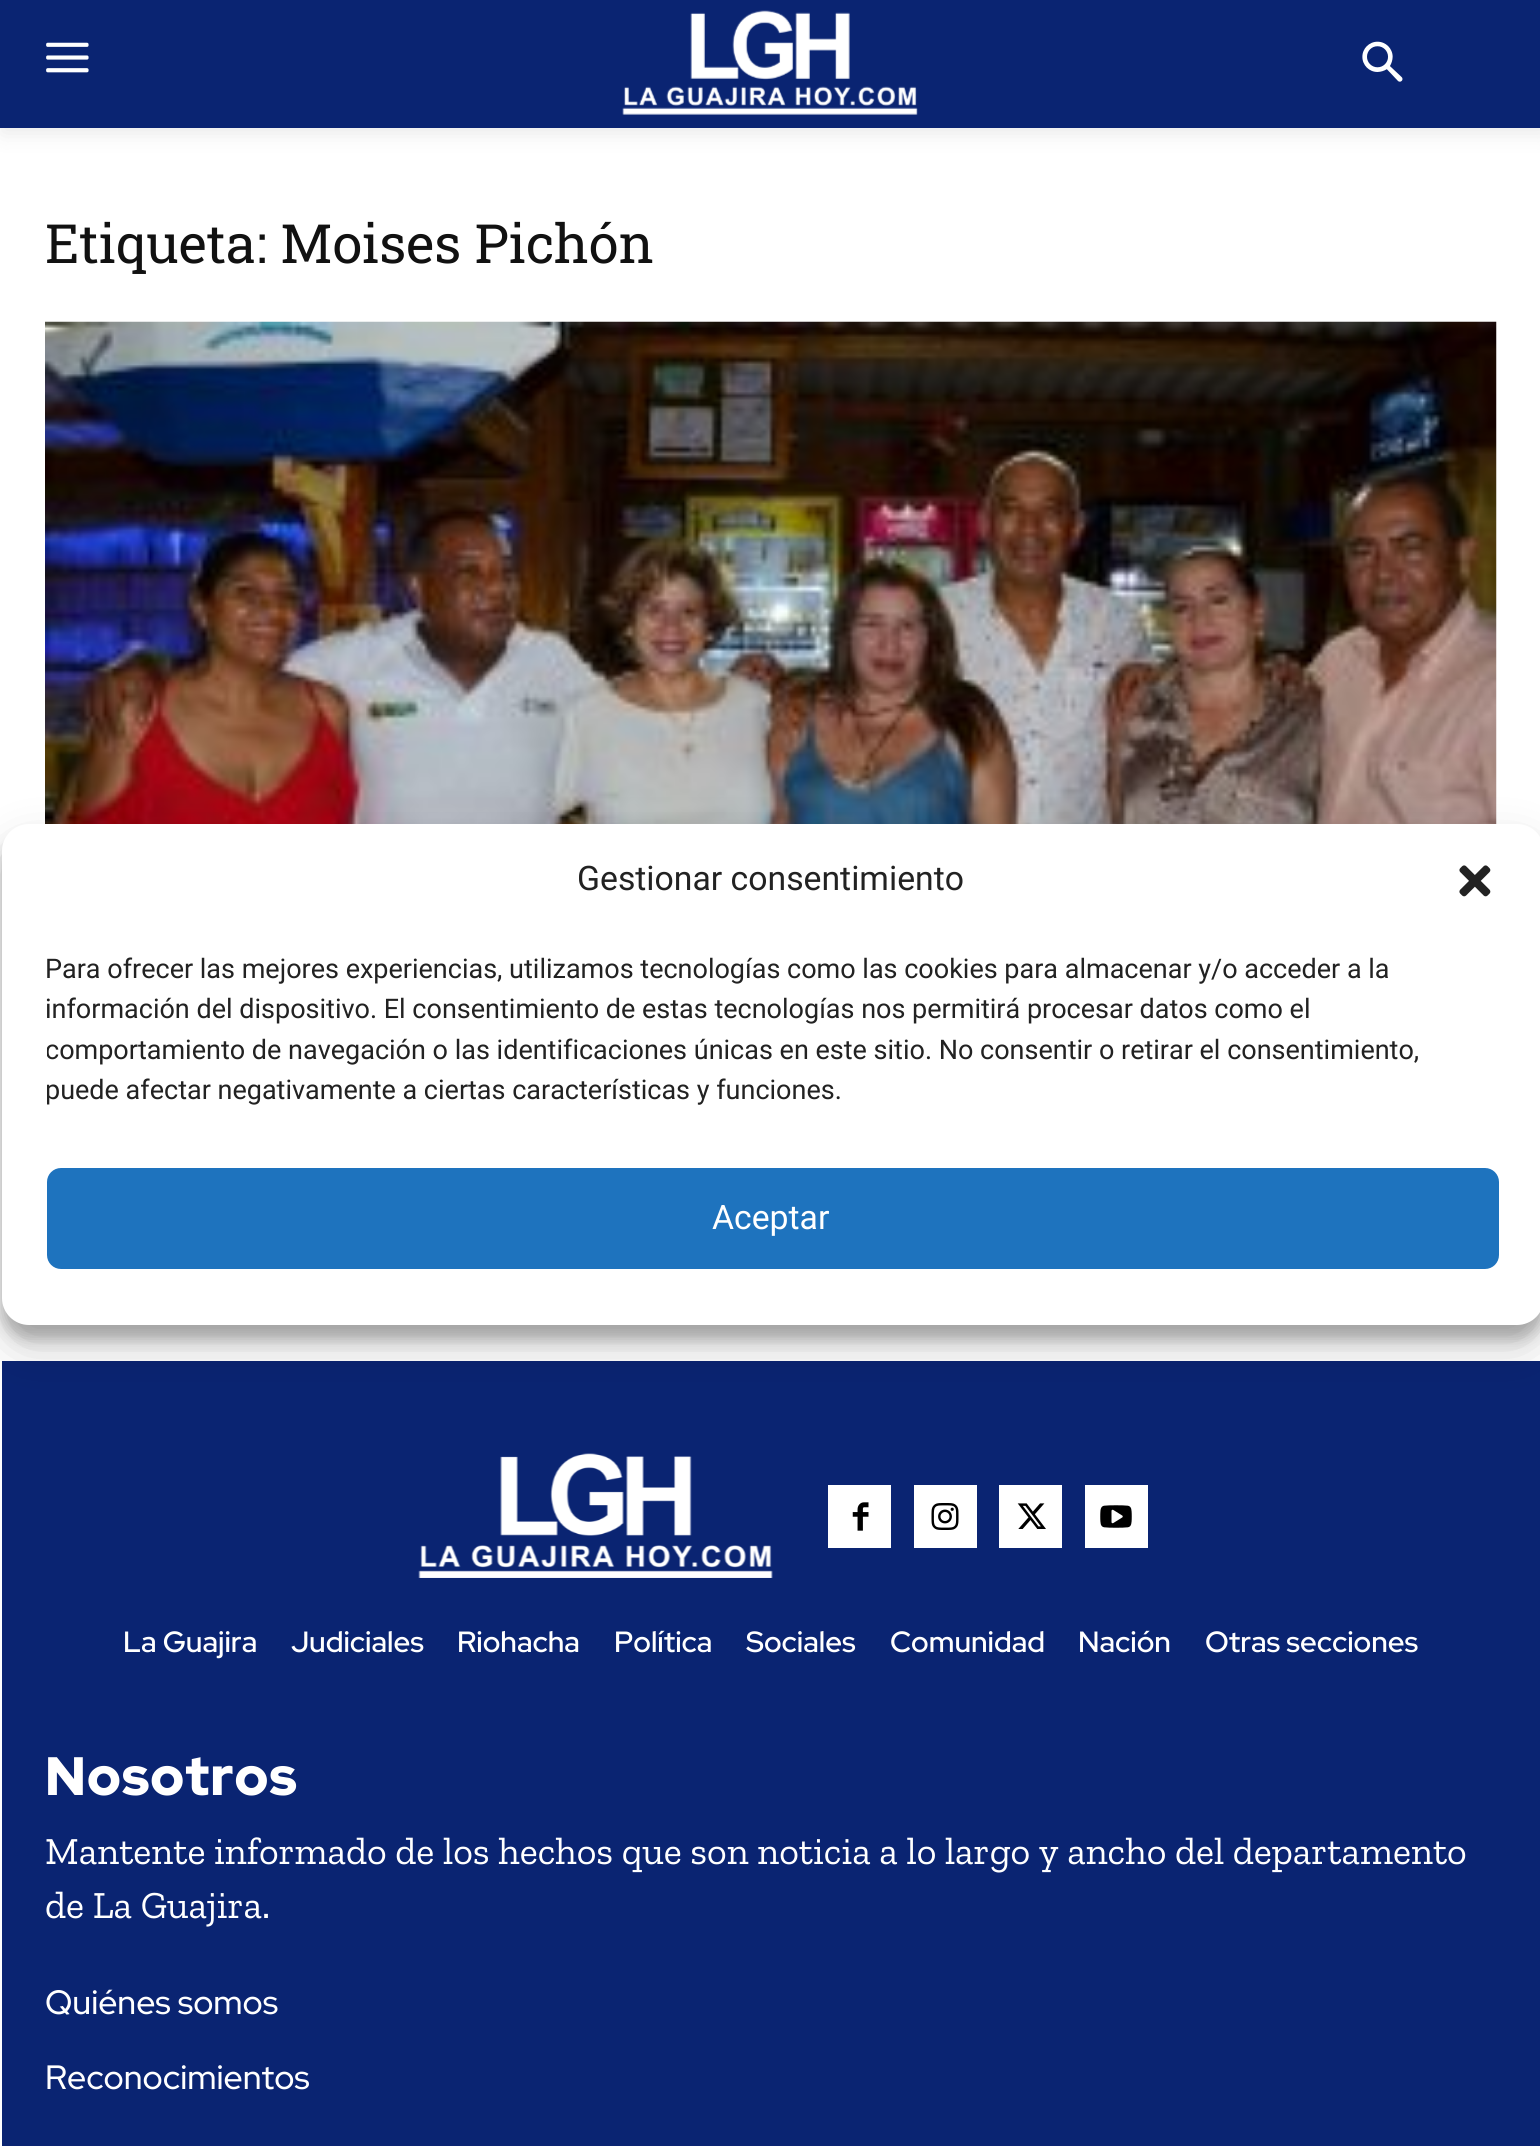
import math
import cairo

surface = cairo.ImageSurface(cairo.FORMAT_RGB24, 1540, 2146)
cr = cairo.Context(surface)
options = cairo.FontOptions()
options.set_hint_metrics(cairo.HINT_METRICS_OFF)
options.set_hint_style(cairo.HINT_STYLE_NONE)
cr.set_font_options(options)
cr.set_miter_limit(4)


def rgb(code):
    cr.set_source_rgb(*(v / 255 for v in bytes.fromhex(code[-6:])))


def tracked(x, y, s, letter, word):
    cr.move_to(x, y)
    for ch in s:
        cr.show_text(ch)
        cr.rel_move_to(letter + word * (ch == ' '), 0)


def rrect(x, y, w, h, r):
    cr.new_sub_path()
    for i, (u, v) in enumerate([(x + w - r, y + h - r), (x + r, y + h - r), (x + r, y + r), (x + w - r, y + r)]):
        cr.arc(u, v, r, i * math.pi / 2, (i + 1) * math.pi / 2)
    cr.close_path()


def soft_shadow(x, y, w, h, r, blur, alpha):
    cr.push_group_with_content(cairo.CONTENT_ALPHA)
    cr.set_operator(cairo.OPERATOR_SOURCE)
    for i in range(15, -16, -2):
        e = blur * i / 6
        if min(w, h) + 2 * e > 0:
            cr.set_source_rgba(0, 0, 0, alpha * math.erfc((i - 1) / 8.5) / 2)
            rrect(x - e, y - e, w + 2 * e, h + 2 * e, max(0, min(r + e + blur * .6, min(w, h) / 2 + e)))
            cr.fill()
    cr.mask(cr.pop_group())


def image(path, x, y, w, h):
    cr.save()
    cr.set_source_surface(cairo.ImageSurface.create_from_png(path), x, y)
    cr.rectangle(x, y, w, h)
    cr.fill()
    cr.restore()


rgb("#ffffff")
cr.paint()
rgb("#000000")
soft_shadow(2, 5, 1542, 128, 0, 11, 0.09)
rgb("#0a2472")
cr.rectangle(0, 0, 1540, 128)
cr.fill()
image("img/1.png", 46, 42, 43, 31)
image("img/2.png", 622, 10, 296, 105)
image("img/3.png", 1362, 41, 41, 41)
image("img/4.png", 45, 321, 1452, 503)
cr.rectangle(2, 1361, 1538, 785)
cr.fill()
image("img/5.png", 418, 1453, 355, 125)
rgb("#ffffff")
cr.rectangle(828, 1485, 63, 63)
cr.fill()
image("img/6.png", 852, 1502, 17, 29)
cr.rectangle(914, 1485, 63, 63)
cr.fill()
image("img/7.png", 931, 1503, 28, 27)
cr.rectangle(999, 1485, 63, 63)
cr.fill()
image("img/8.png", 1017, 1503, 29, 26)
cr.rectangle(1085, 1485, 63, 63)
cr.fill()
image("img/9.png", 1100, 1505, 32, 23)
rgb("#000000")
soft_shadow(2, 837, 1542, 502, 27, 7, 0.23)
soft_shadow(2, 846, 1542, 502, 27, 22.5, 0.19)
rgb("#ffffff")
rrect(2, 824, 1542, 501, 27)
cr.fill()
image("img/10.png", 1459, 865, 32, 32)
rgb("#1e73be")
rrect(48, 1169, 1450, 99, 13)
cr.fill_preserve()
cr.stroke()
cr.select_font_face("Roboto Slab")
cr.set_font_size(54)
rgb("#111111")
cr.move_to(45, 263)
cr.show_text("Etiqueta: Moises Pichón")
cr.select_font_face("Red Hat Display SemiBold")
cr.set_font_size(29.25)
rgb("#ffffff")
for x, y, s in [
    (123, 1652, "La Guajira"),
    (291, 1652, "Judiciales"),
    (457, 1652, "Riohacha"),
    (614, 1652, "Política"),
    (746, 1652, "Sociales"),
    (890, 1652, "Comunidad"),
    (1078, 1652, "Nación"),
    (1205, 1652, "Otras secciones"),
]:
    cr.move_to(x, y)
    cr.show_text(s)
cr.select_font_face("Red Hat Display Black")
cr.set_font_size(54)
tracked(45, 1795, "Nosotros", 1, 0)
cr.select_font_face("Zilla Slab")
cr.set_font_size(38.25)
cr.move_to(45, 1864)
cr.show_text("Mantente informado de los hechos que son noticia a lo largo y ancho del departamento")
cr.move_to(45, 1918)
cr.show_text("de La Guajira.")
cr.select_font_face("Red Hat Display Medium")
cr.set_font_size(33.75)
cr.move_to(45, 2014)
cr.show_text("Quiénes somos")
cr.move_to(45, 2089)
cr.show_text("Reconocimientos")
cr.select_font_face("Roboto")
rgb("#222222")
cr.move_to(577, 890)
cr.show_text("Gestionar consentimiento")
cr.set_font_size(27)
cr.move_to(45, 978)
cr.show_text("Para ofrecer las mejores experiencias, utilizamos tecnologías como las cookies para almacenar y/o acceder a la")
cr.move_to(45, 1018)
cr.show_text("información del dispositivo. El consentimiento de estas tecnologías nos permitirá procesar datos como el")
cr.save()
cr.rectangle(47, 950, 1452, 173)
cr.clip()
cr.move_to(45, 1059)
cr.show_text("comportamiento de navegación o las identificaciones únicas en este sitio. No consentir o retirar el consentimiento,")
cr.move_to(45, 1099)
cr.show_text("puede afectar negativamente a ciertas características y funciones.")
cr.restore()
cr.set_font_size(33.75)
rgb("#ffffff")
cr.move_to(712, 1229)
cr.show_text("Aceptar")
surface.write_to_png("page.png")
